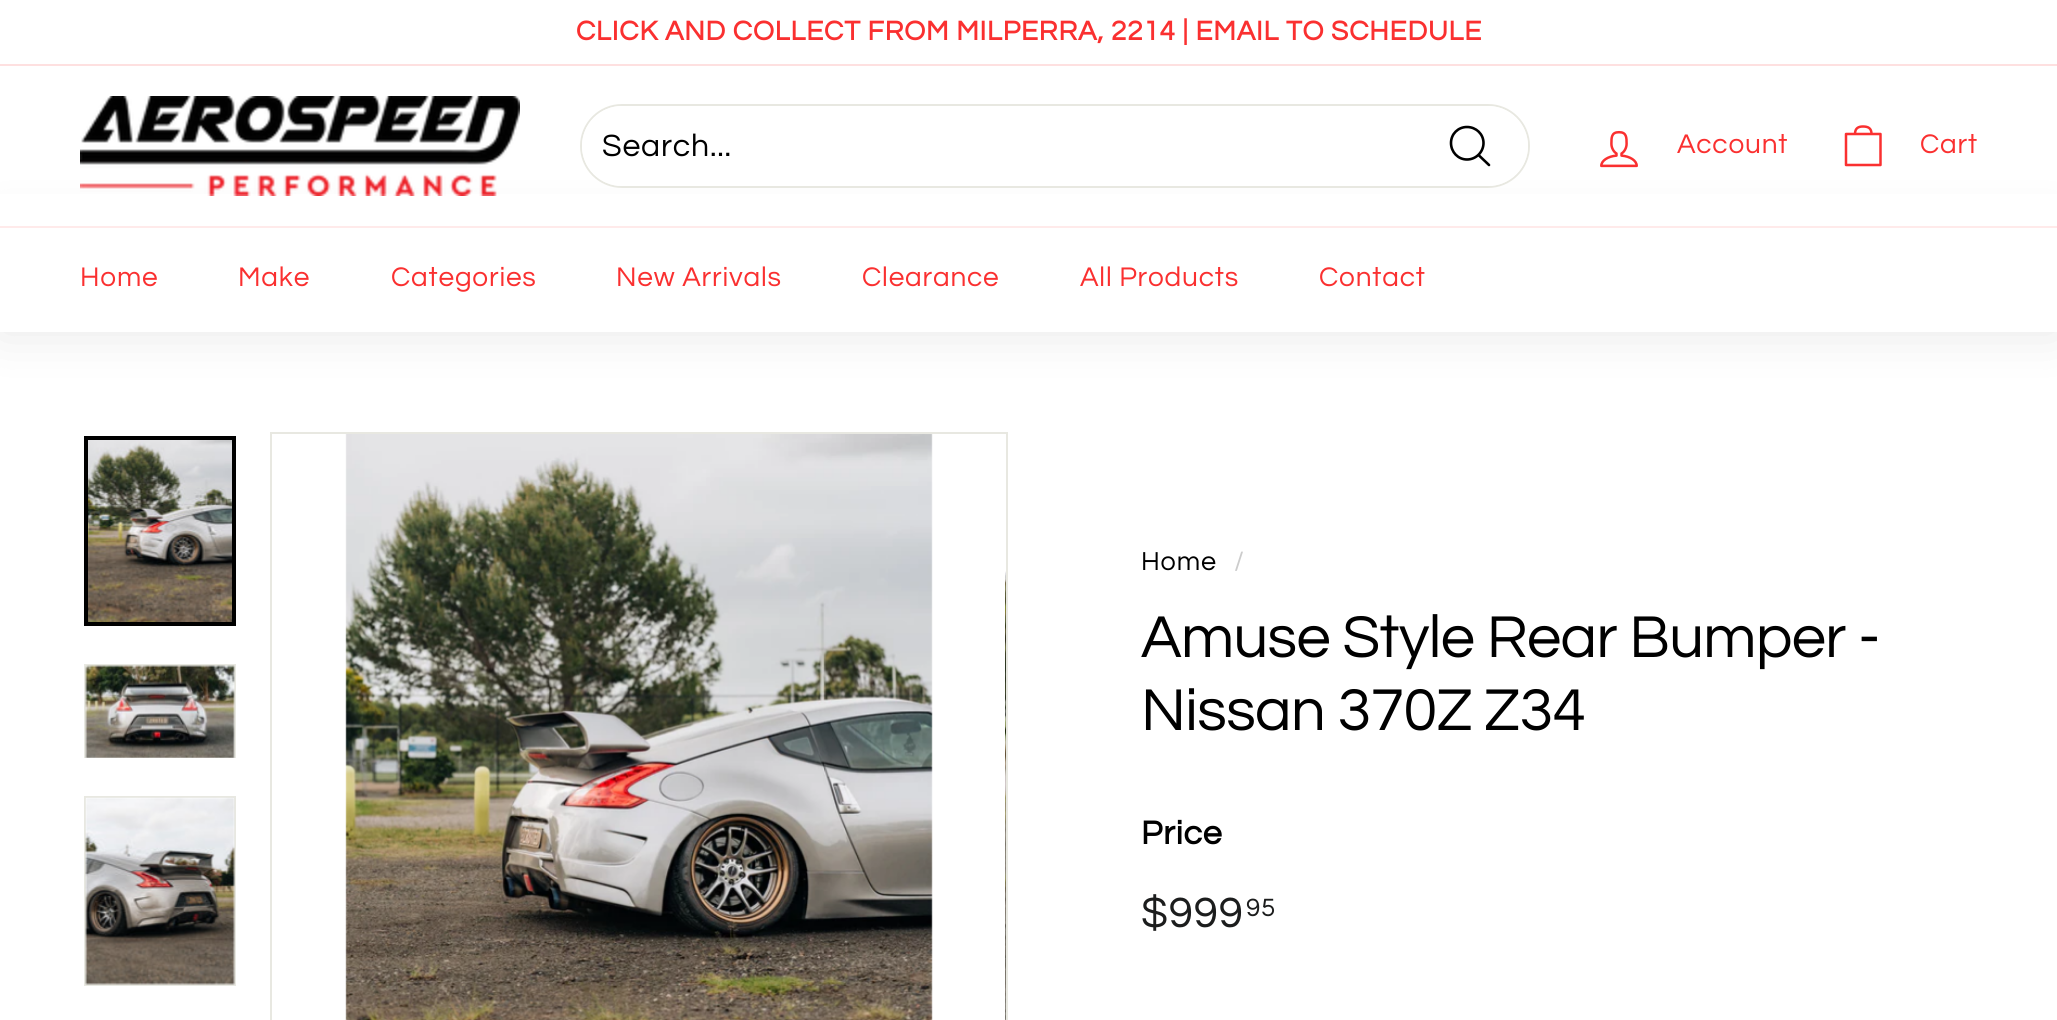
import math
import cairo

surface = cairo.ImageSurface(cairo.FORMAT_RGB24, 2057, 1020)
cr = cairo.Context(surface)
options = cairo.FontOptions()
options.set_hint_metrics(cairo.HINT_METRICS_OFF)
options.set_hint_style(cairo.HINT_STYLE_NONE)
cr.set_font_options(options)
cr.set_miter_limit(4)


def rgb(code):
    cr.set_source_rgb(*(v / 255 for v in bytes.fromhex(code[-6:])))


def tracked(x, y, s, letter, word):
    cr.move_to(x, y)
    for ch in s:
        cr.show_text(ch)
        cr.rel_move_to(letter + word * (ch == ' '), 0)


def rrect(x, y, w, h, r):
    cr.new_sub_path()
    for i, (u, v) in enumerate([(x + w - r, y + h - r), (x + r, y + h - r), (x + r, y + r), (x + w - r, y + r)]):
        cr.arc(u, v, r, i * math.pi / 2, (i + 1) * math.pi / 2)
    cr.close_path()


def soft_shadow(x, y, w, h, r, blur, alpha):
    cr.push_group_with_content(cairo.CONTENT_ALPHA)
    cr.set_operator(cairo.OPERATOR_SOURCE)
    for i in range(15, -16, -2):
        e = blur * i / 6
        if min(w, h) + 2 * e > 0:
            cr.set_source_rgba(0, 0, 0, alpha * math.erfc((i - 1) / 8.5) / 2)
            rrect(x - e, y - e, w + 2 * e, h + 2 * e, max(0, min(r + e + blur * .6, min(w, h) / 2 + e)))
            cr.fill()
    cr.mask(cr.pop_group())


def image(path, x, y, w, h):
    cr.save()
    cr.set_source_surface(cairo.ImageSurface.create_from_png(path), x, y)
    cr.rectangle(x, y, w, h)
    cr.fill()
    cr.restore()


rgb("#ffffff")
cr.paint()
rgb("#fee0e0")
cr.rectangle(0, 64, 2057, 2)
cr.fill()
rgb("#000000")
soft_shadow(0, 226, 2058, 106, 0, 25, 0.1)
rgb("#ffffff")
cr.rectangle(0, 194, 2057, 32)
cr.fill()
image("img/1.png", 80, 96, 440, 100)
rrect(581, 105, 948, 82, 41)
rgb("#e8e8e1")
cr.stroke()
rgb("#ffffff")
rrect(582, 106, 946, 80, 40)
cr.fill()
cr.new_path()
cr.move_to(1483.5, 143)
cr.curve_to(1483.5, 152, 1476, 159.5, 1467, 159.5)
cr.curve_to(1458, 159.5, 1451, 152, 1451, 143)
cr.curve_to(1451, 134, 1458, 127, 1467, 127)
cr.curve_to(1476, 127, 1483.5, 134, 1483.5, 143)
cr.close_path()
cr.move_to(1489, 165)
cr.line_to(1478.5, 155)
rgb("#000000")
cr.set_line_width(2.6)
cr.set_line_cap(cairo.LINE_CAP_ROUND)
cr.set_line_join(cairo.LINE_JOIN_ROUND)
cr.stroke()
image("img/2.png", 1600, 130, 38, 38)
cr.new_path()
cr.move_to(1855, 134)
cr.curve_to(1855, 128, 1858.5, 126.5, 1863, 126.5)
cr.curve_to(1868, 126.5, 1871.5, 128, 1871.5, 134)
cr.move_to(1846, 134)
cr.line_to(1880.5, 134)
cr.line_to(1880.5, 165)
cr.line_to(1846, 165)
cr.close_path()
rgb("#fa3030")
cr.set_line_width(2.5)
cr.stroke()
rgb("#ffffff")
cr.rectangle(0, 228, 2057, 104)
cr.fill()
rgb("#ffeaea")
cr.rectangle(0, 226, 2057, 2)
cr.fill()
image("img/3.png", 88, 440, 144, 182)
cr.rectangle(86, 438, 148, 186)
rgb("#000000")
cr.set_line_width(4)
cr.set_line_cap(cairo.LINE_CAP_BUTT)
cr.set_line_join(cairo.LINE_JOIN_MITER)
cr.stroke()
cr.save()
cr.rectangle(84, 664, 152, 94)
cr.clip()
cr.rectangle(85, 665, 150, 94)
rgb("#e8e8e1")
cr.set_line_width(2)
cr.stroke()
cr.restore()
image("img/4.png", 85, 665, 150, 93)
cr.rectangle(85, 797, 150, 188)
rgb("#e8e8e1")
cr.set_line_width(2)
cr.stroke()
image("img/5.png", 85, 797, 150, 188)
cr.rectangle(271, 433, 736, 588)
cr.stroke()
image("img/6.png", 345, 434, 588, 586)
image("img/7.png", 1005, 571, 1, 449)
cr.select_font_face("Questrial", cairo.FONT_SLANT_NORMAL, cairo.FONT_WEIGHT_BOLD)
cr.set_font_size(28)
rgb("#fa3030")
tracked(576, 40, "CLICK AND COLLECT FROM MILPERRA, 2214 | EMAIL TO SCHEDULE", 0.8, 0)
cr.select_font_face("Questrial")
cr.set_font_size(32)
rgb("#000000")
tracked(602, 156, "Search...", 0.8, 0)
cr.set_font_size(28)
rgb("#fa3030")
for x, y, s in [
    (1677, 153, "Account"),
    (1920, 153, "Cart"),
    (80, 286, "Home"),
    (238, 286, "Make"),
    (391, 286, "Categories"),
    (616, 286, "New Arrivals"),
    (862, 286, "Clearance"),
    (1080, 286, "All Products"),
    (1319, 286, "Contact"),
]:
    tracked(x, y, s, 0.8, 0)
cr.set_font_size(27)
rgb("#000000")
tracked(1141, 570, "Home", 0.8, 0)
rgb("#cccccc")
tracked(1234, 570, "/", 0.8, 0)
cr.set_font_size(61.25)
rgb("#000000")
tracked(1141, 657, "Amuse Style Rear Bumper -", -0.6, 0)
tracked(1141, 730, "Nissan 370Z Z34", -0.6, 0)
cr.select_font_face("Questrial", cairo.FONT_SLANT_NORMAL, cairo.FONT_WEIGHT_BOLD)
cr.set_font_size(34)
tracked(1141, 844, "Price", 0.8, 0)
cr.select_font_face("Questrial")
cr.set_font_size(44)
rgb("#1c1d1d")
tracked(1141, 927, "$999", 0.8, 0)
cr.set_font_size(26)
tracked(1246, 916, "95", 0.8, 0)
surface.write_to_png("page.png")
